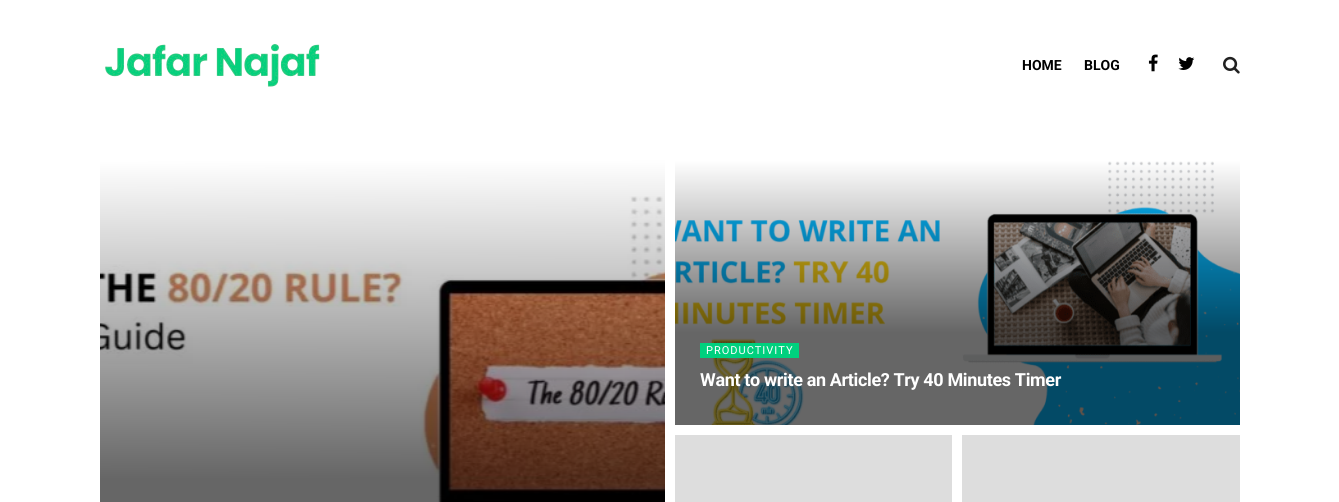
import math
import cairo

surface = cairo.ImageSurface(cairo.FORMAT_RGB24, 1339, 502)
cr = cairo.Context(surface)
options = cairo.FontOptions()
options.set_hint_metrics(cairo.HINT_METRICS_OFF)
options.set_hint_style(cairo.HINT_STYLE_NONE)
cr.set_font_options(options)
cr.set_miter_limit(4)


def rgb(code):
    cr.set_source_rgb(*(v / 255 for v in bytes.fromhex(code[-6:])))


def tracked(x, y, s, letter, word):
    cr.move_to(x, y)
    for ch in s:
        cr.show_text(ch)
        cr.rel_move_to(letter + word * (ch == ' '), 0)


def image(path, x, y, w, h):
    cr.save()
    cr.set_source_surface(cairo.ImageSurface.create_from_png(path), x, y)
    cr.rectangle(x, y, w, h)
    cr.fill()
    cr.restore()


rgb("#ffffff")
cr.paint()
image("img/1.png", 105, 44, 215, 43)
image("img/2.png", 1148, 54, 10, 18)
image("img/3.png", 1178, 57, 17, 13)
image("img/4.png", 1223, 56, 17, 18)
image("img/5.png", 100, 160, 565, 342)
image("img/6.png", 675, 160, 565, 265)
for x, y, w, h, color in [
    (700, 343, 99, 15, "#00d07e"),
    (675, 435, 277, 67, "#dddddd"),
    (962, 435, 278, 67, "#dddddd"),
]:
    rgb(color)
    cr.rectangle(x, y, w, h)
    cr.fill()
cr.select_font_face("Roboto", cairo.FONT_SLANT_NORMAL, cairo.FONT_WEIGHT_BOLD)
cr.set_font_size(14)
rgb("#000000")
cr.move_to(1022, 70)
cr.show_text("HOME")
cr.move_to(1084, 70)
cr.show_text("BLOG")
cr.select_font_face("Roboto")
cr.set_font_size(11)
rgb("#ffffff")
tracked(706, 354, "PRODUCTIVITY", 1, 0)
cr.select_font_face("Roboto", cairo.FONT_SLANT_NORMAL, cairo.FONT_WEIGHT_BOLD)
cr.set_font_size(18)
tracked(700, 386, "Want to write an Article? Try 40 Minutes Timer", -0.35, 0)
surface.write_to_png("page.png")
